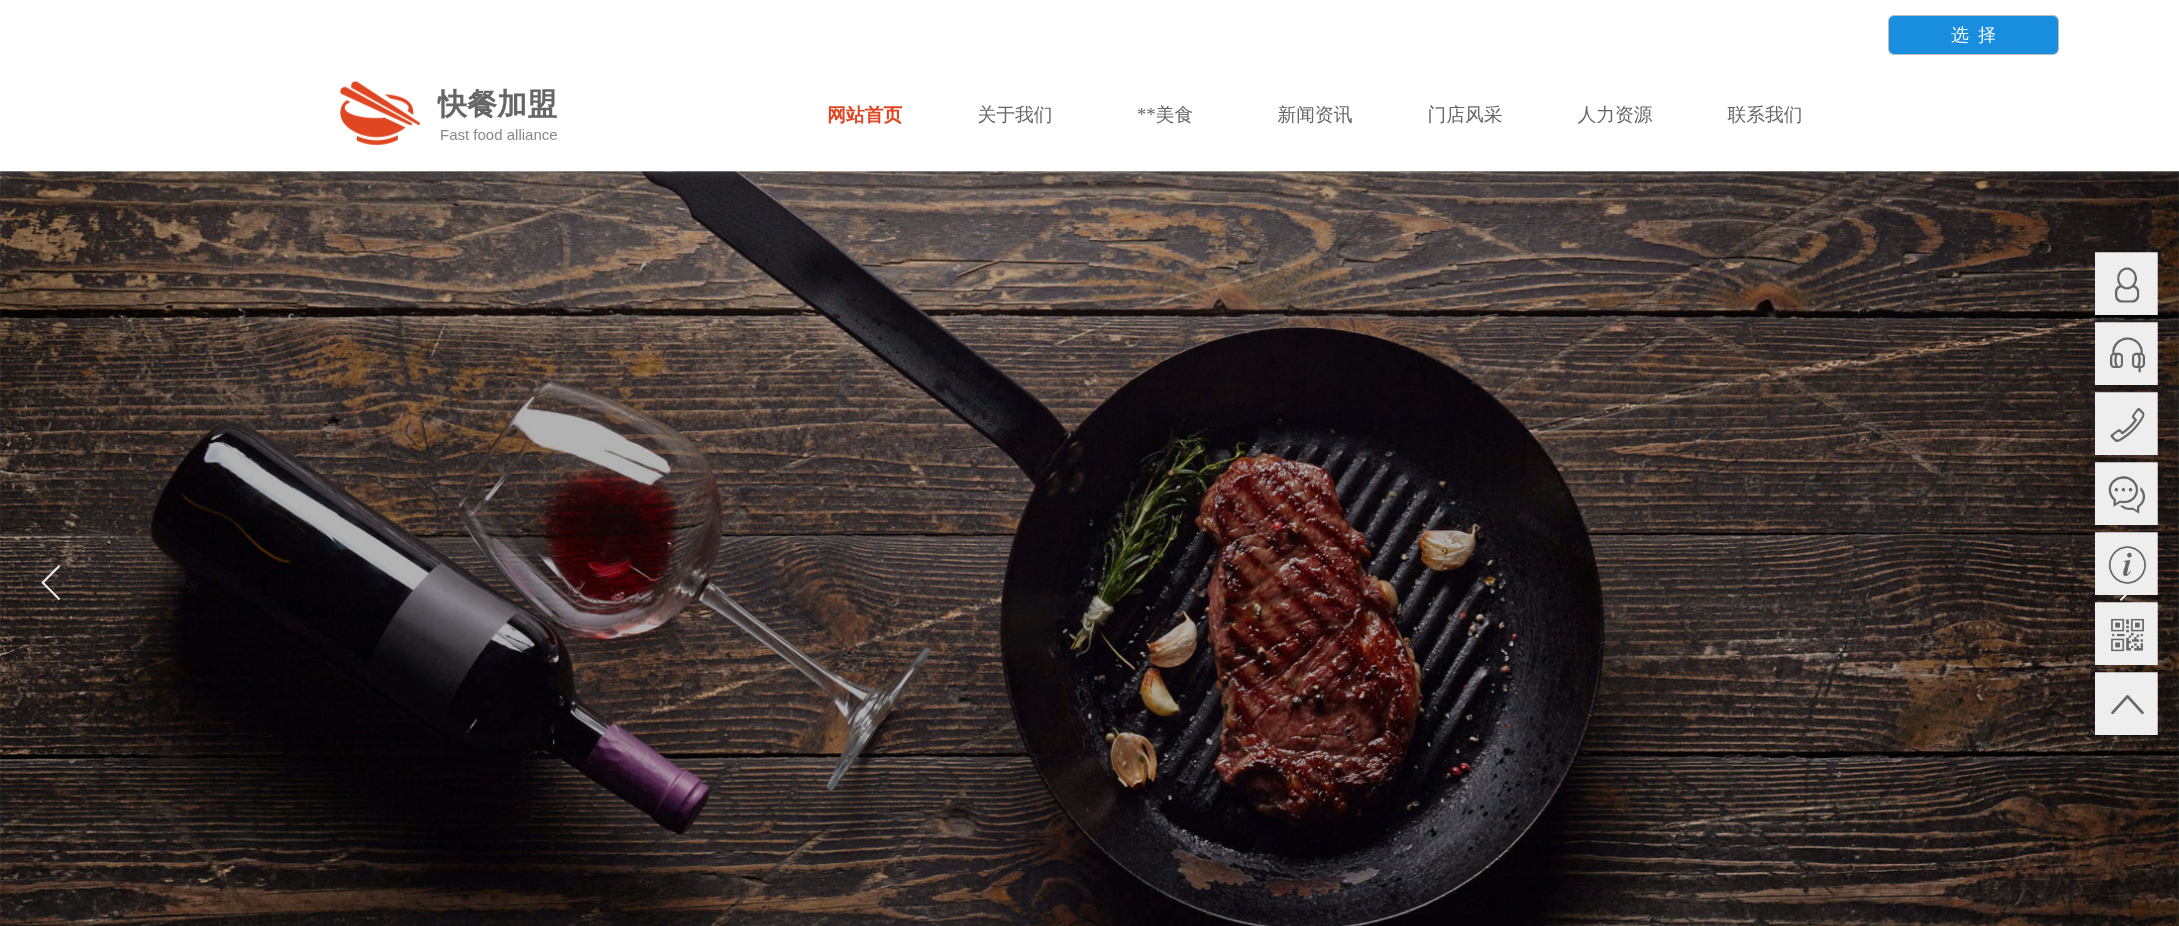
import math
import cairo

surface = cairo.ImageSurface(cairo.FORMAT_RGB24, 2179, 926)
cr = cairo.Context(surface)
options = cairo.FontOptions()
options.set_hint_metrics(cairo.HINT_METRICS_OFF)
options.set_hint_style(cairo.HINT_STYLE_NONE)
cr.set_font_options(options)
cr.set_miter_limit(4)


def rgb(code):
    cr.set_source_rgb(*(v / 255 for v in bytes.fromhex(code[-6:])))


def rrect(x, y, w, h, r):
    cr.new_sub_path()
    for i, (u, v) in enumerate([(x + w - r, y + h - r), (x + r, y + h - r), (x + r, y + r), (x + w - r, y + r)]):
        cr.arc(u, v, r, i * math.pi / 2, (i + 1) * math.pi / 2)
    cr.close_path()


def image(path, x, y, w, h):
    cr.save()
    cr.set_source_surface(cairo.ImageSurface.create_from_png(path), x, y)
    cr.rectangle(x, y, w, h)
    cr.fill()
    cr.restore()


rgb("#ffffff")
cr.paint()
rrect(1888.5, 15.5, 170, 39, 5.5)
rgb("#bdbdbd")
cr.set_line_width(1)
cr.stroke()
rgb("#198ede")
rrect(1889, 16, 169, 38, 5)
cr.fill()
image("img/1.png", 0, 80, 2179, 846)
cr.select_font_face("WenQuanYi Zen Hei Medium")
cr.set_font_size(18)
rgb("#ffffff")
cr.move_to(1951, 41)
cr.show_text("选")
cr.move_to(1978, 41)
cr.show_text("择")
surface.write_to_png("page.png")
